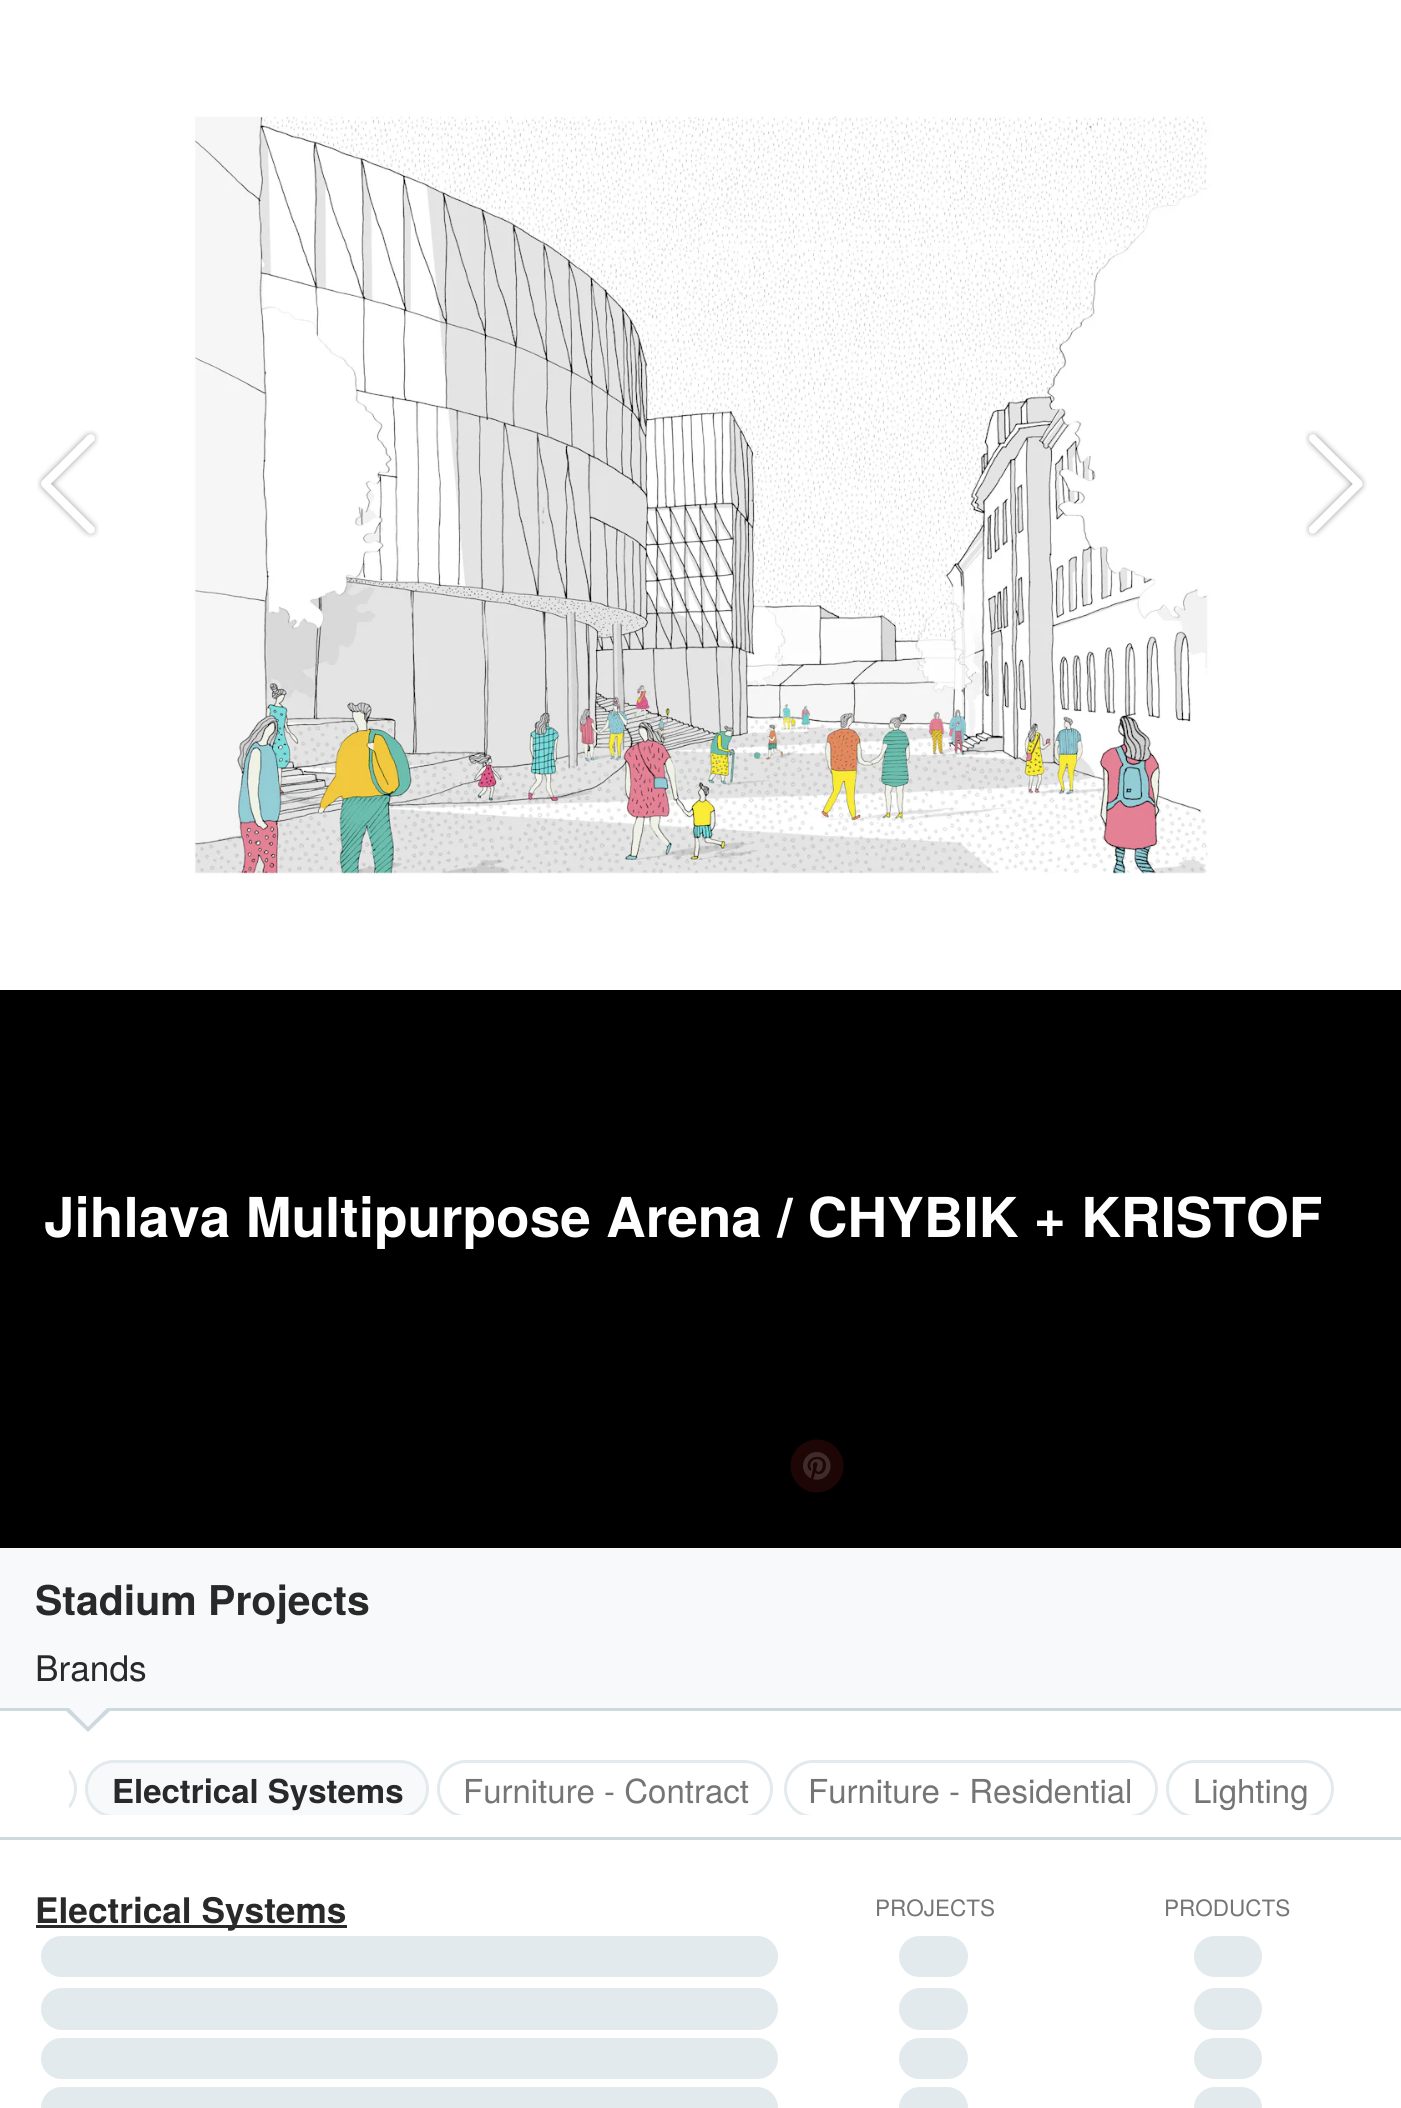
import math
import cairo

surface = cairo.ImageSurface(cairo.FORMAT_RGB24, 1401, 2108)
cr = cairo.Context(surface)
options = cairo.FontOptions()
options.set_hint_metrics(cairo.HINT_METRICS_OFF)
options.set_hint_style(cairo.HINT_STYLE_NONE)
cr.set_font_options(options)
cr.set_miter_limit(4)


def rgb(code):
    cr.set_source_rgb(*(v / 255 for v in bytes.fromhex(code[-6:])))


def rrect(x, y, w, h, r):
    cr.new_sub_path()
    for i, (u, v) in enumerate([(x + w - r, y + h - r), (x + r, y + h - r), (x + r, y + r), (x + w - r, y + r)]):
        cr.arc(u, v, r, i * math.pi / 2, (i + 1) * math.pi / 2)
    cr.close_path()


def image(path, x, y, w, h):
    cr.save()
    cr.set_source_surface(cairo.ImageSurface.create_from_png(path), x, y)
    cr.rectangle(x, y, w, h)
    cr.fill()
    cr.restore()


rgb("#ffffff")
cr.paint()
rgb("#000000")
cr.rectangle(0, 990, 1401, 558)
cr.fill()
image("img/1.png", 0, 0, 1401, 990)
image("img/2.png", 37, 430, 62, 108)
image("img/3.png", 1305, 430, 62, 108)
image("img/4.png", 790, 1439, 54, 54)
rgb("#f7f9fa")
cr.rectangle(0, 1548, 1401, 160)
cr.fill()
rgb("#ced9df")
cr.rectangle(0, 1708, 1401, 3)
cr.fill()
cr.new_path()
cr.move_to(63, 1708)
cr.line_to(113, 1708)
cr.line_to(88, 1732)
cr.close_path()
cr.fill()
rgb("#f7f9fa")
cr.new_path()
cr.move_to(66, 1705)
cr.line_to(110, 1705)
cr.line_to(88, 1727)
cr.close_path()
cr.fill()
cr.save()
cr.rectangle(69, 1746, 1265, 69)
cr.clip()
rrect(-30.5, 1761.5, 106, 55, 27.5)
rgb("#e3eaed")
cr.set_line_width(3)
cr.stroke()
rgb("#f7f9fa")
rrect(86.5, 1761.5, 341, 55, 27.5)
cr.fill_preserve()
rgb("#e3eaed")
cr.stroke()
rrect(438.5, 1761.5, 333, 55, 27.5)
cr.stroke()
rrect(785.5, 1761.5, 371, 55, 27.5)
cr.stroke()
rrect(1167.5, 1761.5, 165, 55, 27.5)
cr.stroke()
cr.restore()
rgb("#ced9df")
cr.rectangle(0, 1837, 1401, 3)
cr.fill()
rgb("#292929")
cr.rectangle(36, 1925, 311, 3)
cr.fill()
rgb("#e3eaed")
rrect(41, 1936, 737, 41, 20.5)
cr.fill()
rrect(899, 1936, 69, 41, 20.5)
cr.fill()
rrect(1194, 1936, 68, 41, 20.5)
cr.fill()
rrect(41, 1988, 737, 42, 21)
cr.fill()
rrect(899, 1988, 69, 42, 21)
cr.fill()
rrect(1194, 1988, 68, 42, 21)
cr.fill()
rrect(41, 2038, 737, 41, 20.5)
cr.fill()
rrect(899, 2038, 69, 41, 20.5)
cr.fill()
rrect(1194, 2038, 68, 41, 20.5)
cr.fill()
rrect(41, 2087, 737, 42, 21)
cr.fill()
rrect(899, 2087, 69, 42, 21)
cr.fill()
rrect(1194, 2087, 68, 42, 21)
cr.fill()
cr.select_font_face("TeX Gyre Heros", cairo.FONT_SLANT_NORMAL, cairo.FONT_WEIGHT_BOLD)
cr.set_font_size(55)
rgb("#ffffff")
cr.move_to(44, 1237)
cr.show_text("Jihlava Multipurpose Arena / CHYBIK + KRISTOF")
cr.set_font_size(41)
rgb("#292929")
cr.move_to(35, 1615)
cr.show_text("Stadium Projects")
cr.select_font_face("TeX Gyre Heros")
cr.set_font_size(35.25)
cr.move_to(35, 1681)
cr.show_text("Brands")
cr.select_font_face("TeX Gyre Heros", cairo.FONT_SLANT_NORMAL, cairo.FONT_WEIGHT_BOLD)
cr.set_font_size(33)
cr.move_to(112, 1803)
cr.show_text("Electrical Systems")
cr.select_font_face("TeX Gyre Heros")
rgb("#757575")
for x, y, s in [
    (463, 1803, "Furniture - Contract"),
    (808, 1803, "Furniture - Residential"),
    (1193, 1803, "Lighting"),
]:
    cr.move_to(x, y)
    cr.show_text(s)
cr.select_font_face("TeX Gyre Heros", cairo.FONT_SLANT_NORMAL, cairo.FONT_WEIGHT_BOLD)
cr.set_font_size(35.25)
rgb("#292929")
cr.move_to(35, 1923)
cr.show_text("Electrical Systems")
cr.select_font_face("TeX Gyre Heros")
cr.set_font_size(22.5)
rgb("#757575")
cr.move_to(875, 1916)
cr.show_text("PROJECTS")
cr.move_to(1164, 1916)
cr.show_text("PRODUCTS")
surface.write_to_png("page.png")
